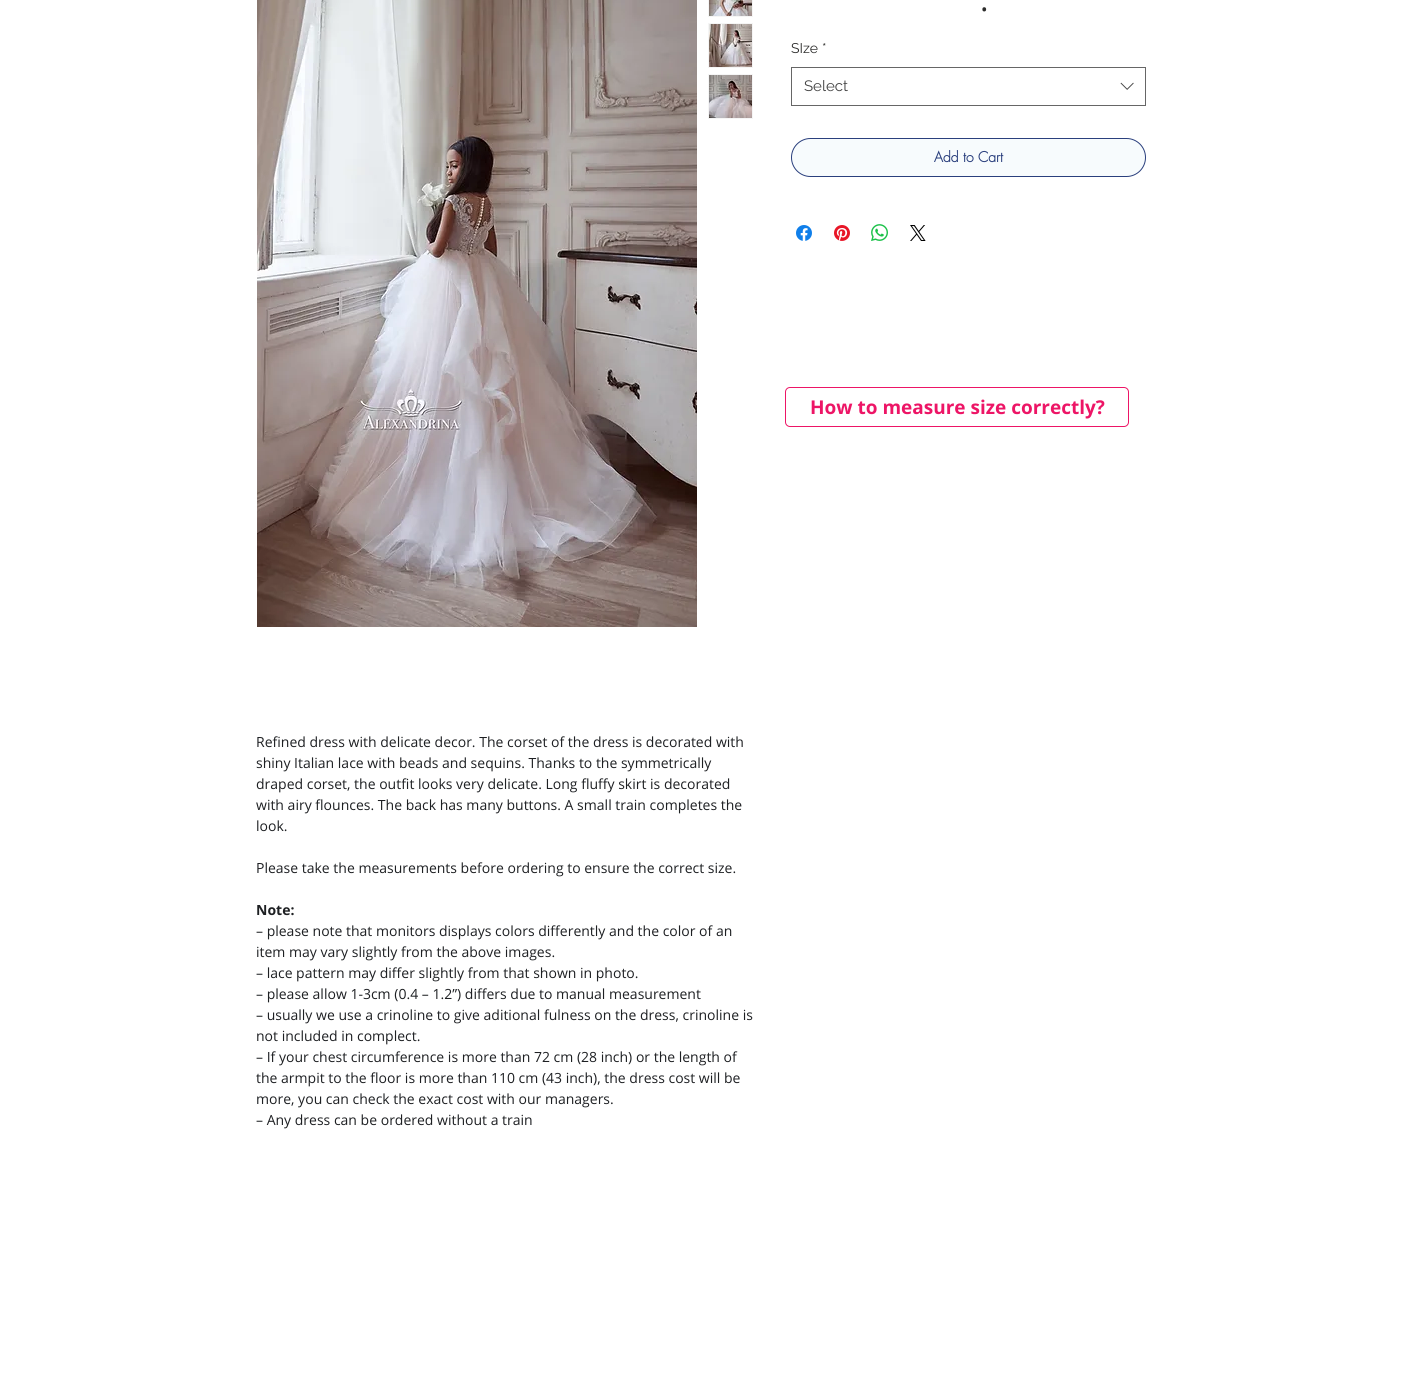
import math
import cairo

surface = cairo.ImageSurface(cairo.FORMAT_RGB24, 1402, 1399)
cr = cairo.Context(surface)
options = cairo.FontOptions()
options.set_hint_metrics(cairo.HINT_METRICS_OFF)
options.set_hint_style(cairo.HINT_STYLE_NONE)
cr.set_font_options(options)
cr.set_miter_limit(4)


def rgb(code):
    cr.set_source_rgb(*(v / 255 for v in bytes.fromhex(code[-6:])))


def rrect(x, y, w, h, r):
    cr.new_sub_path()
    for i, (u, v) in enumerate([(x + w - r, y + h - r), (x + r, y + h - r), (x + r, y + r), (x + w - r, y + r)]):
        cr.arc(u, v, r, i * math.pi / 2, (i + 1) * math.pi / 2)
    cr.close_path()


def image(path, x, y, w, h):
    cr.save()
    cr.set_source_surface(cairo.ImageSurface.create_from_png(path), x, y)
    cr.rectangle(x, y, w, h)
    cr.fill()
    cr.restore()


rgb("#ffffff")
cr.paint()
cr.rectangle(791.5, 67.5, 354, 38)
rgb("#666666")
cr.set_line_width(1)
cr.stroke()
image("img/1.png", 1120, 82, 14, 8)
rgb("#f7fbfd")
rrect(791.5, 138.5, 354, 38, 19)
cr.fill_preserve()
rgb("#2a3f7d")
cr.stroke()
image("img/2.png", 796, 225, 16, 16)
image("img/3.png", 834, 225, 16, 16)
image("img/4.png", 871, 224, 17, 17)
image("img/5.png", 910, 225, 16, 16)
image("img/6.png", 257, 0, 440, 627)
rgb("#f5f5f5")
cr.rectangle(708, 0, 45, 17)
cr.fill()
image("img/7.png", 709, 0, 43, 16)
cr.rectangle(708, 23, 45, 45)
cr.fill()
image("img/8.png", 709, 24, 43, 43)
cr.rectangle(708, 74, 45, 45)
cr.fill()
image("img/9.png", 709, 75, 43, 43)
rrect(785.5, 387.5, 343, 39, 4.5)
rgb("#ed1566")
cr.stroke()
cr.select_font_face("Open Sans")
cr.set_font_size(32)
rgb("#2c2c2b")
cr.move_to(980, 11)
cr.show_text(".")
cr.select_font_face("Raleway")
cr.set_font_size(14)
cr.move_to(791, 53)
cr.show_text("SIze")
cr.move_to(822, 53)
cr.show_text("*")
cr.set_font_size(15)
rgb("#444444")
cr.move_to(804, 91)
cr.show_text("Select")
cr.select_font_face("futura", cairo.FONT_SLANT_NORMAL, cairo.FONT_WEIGHT_BOLD)
cr.set_font_size(14)
rgb("#2a3f7d")
cr.move_to(934, 162)
cr.show_text("Add to Cart")
cr.select_font_face("Open Sans")
rgb("#1e2023")
for x, y, s in [
    (256, 747, "Refined dress with delicate decor. The corset of the dress is decorated with"),
    (256, 768, "shiny Italian lace with beads and sequins. Thanks to the symmetrically"),
    (256, 789, "draped corset, the outfit looks very delicate. Long fluffy skirt is decorated"),
    (256, 810, "with airy flounces. The back has many buttons. A small train completes the"),
    (256, 831, "look."),
    (256, 873, "Please take the measurements before ordering to ensure the correct size."),
]:
    cr.move_to(x, y)
    cr.show_text(s)
cr.select_font_face("Open Sans", cairo.FONT_SLANT_NORMAL, cairo.FONT_WEIGHT_BOLD)
cr.move_to(256, 915)
cr.show_text("Note:")
cr.select_font_face("Open Sans")
for x, y, s in [
    (256, 936, "– please note that monitors displays colors differently and the color of an"),
    (256, 957, "item may vary slightly from the above images."),
    (256, 978, "– lace pattern may differ slightly from that shown in photo."),
    (256, 999, "– please allow 1-3cm (0.4 – 1.2”) differs due to manual measurement"),
    (256, 1020, "– usually we use a crinoline to give aditional fulness on the dress, crinoline is"),
    (256, 1041, "not included in complect."),
    (256, 1062, "– If your chest circumference is more than 72 cm (28 inch) or the length of"),
    (256, 1083, "the armpit to the floor is more than 110 cm (43 inch), the dress cost will be"),
    (256, 1104, "more, you can check the exact cost with our managers."),
    (256, 1125, "– Any dress can be ordered without a train"),
]:
    cr.move_to(x, y)
    cr.show_text(s)
cr.select_font_face("Open Sans", cairo.FONT_SLANT_NORMAL, cairo.FONT_WEIGHT_BOLD)
cr.set_font_size(19)
rgb("#ed1566")
cr.move_to(810, 414)
cr.show_text("How to measure size correctly?")
surface.write_to_png("page.png")
